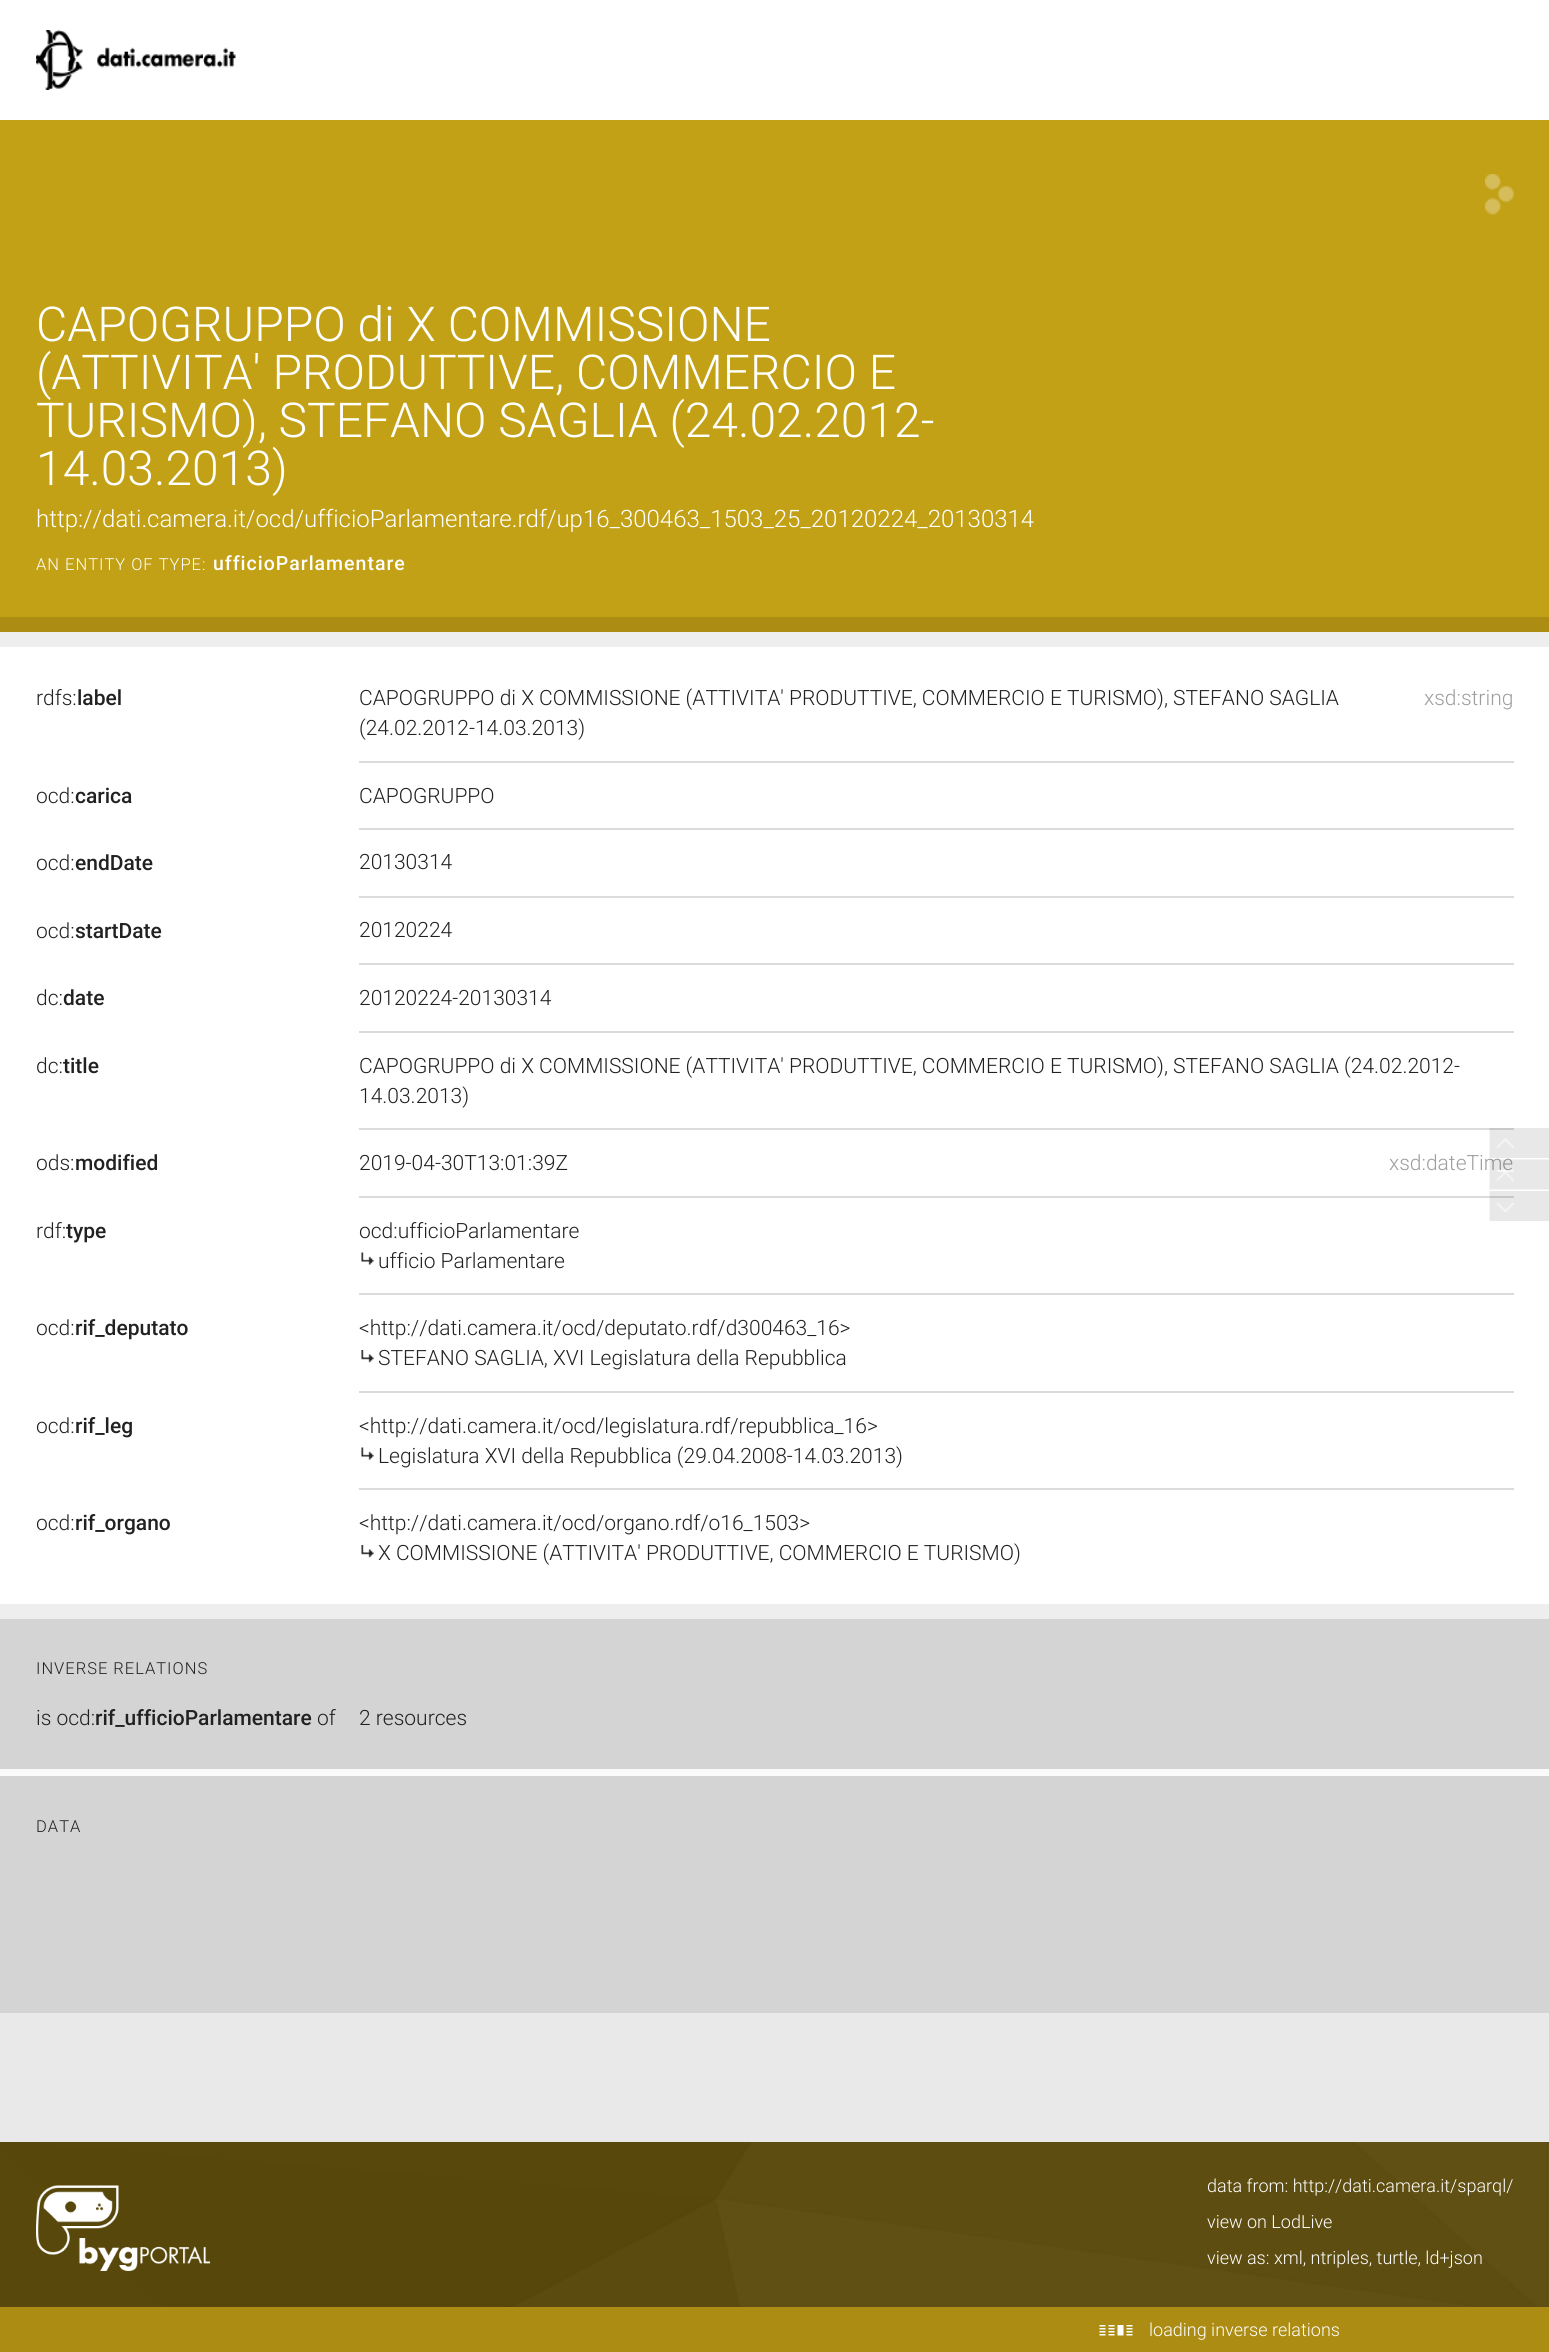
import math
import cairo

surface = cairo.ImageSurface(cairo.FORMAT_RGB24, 1549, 2352)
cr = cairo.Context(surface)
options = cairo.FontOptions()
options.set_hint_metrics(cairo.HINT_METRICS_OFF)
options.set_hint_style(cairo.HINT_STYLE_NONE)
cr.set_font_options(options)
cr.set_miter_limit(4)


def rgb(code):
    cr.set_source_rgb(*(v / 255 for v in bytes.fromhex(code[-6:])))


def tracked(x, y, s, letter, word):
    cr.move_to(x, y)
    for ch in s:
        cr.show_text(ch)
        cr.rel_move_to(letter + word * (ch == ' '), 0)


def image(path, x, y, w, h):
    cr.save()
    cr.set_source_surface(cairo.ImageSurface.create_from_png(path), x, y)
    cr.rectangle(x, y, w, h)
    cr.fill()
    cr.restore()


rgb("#ac8c13")
cr.paint()
rgb("#ffffff")
cr.rectangle(0, 0, 1549, 120)
cr.fill()
image("img/1.png", 36, 30, 200, 60)
rgb("#c3a116")
cr.rectangle(0, 120, 1549, 497)
cr.fill()
image("img/2.png", 1485, 174, 29, 41)
for x, y, w, h, color in [
    (0, 632, 1549, 15, "#eeeeee"),
    (0, 647, 1549, 957, "#ffffff"),
    (359, 761, 1155, 2, "#dbdbdb"),
    (359, 828, 1155, 2, "#dbdbdb"),
    (359, 896, 1155, 2, "#dbdbdb"),
    (359, 963, 1155, 2, "#dbdbdb"),
    (359, 1031, 1155, 2, "#dbdbdb"),
    (359, 1128, 1155, 2, "#dbdbdb"),
    (359, 1196, 1155, 2, "#dbdbdb"),
    (359, 1293, 1155, 2, "#dbdbdb"),
]:
    rgb(color)
    cr.rectangle(x, y, w, h)
    cr.fill()
image("img/3.png", 361, 1252, 13, 13)
cr.rectangle(359, 1391, 1155, 2)
cr.fill()
image("img/4.png", 361, 1350, 13, 13)
cr.rectangle(359, 1488, 1155, 2)
cr.fill()
image("img/3.png", 361, 1447, 13, 13)
image("img/4.png", 361, 1545, 13, 13)
for x, y, w, h, color in [
    (0, 1604, 1549, 15, "#eeeeee"),
    (0, 1619, 1549, 150, "#d4d4d4"),
    (0, 1769, 1549, 7, "#fafafa"),
    (0, 1776, 1549, 237, "#d4d4d4"),
    (0, 2013, 1549, 129, "#e9e9e9"),
]:
    rgb(color)
    cr.rectangle(x, y, w, h)
    cr.fill()
image("img/7.png", 1489, 1191, 60, 30)
image("img/8.png", 0, 2142, 1549, 165)
image("img/9.png", 36, 2185, 174, 86)
image("img/10.png", 1099, 2325, 34, 11)
cr.select_font_face("Roboto Light")
cr.set_font_size(48)
rgb("#ffffff")
for x, y, s in [
    (36, 341, "CAPOGRUPPO di X COMMISSIONE"),
    (36, 389, "(ATTIVITA' PRODUTTIVE, COMMERCIO E"),
    (36, 437, "TURISMO), STEFANO SAGLIA (24.02.2012-"),
    (36, 485, "14.03.2013)"),
]:
    cr.move_to(x, y)
    cr.show_text(s)
cr.set_font_size(24)
cr.move_to(36, 527)
cr.show_text("http://dati.camera.it/ocd/ufficioParlamentare.rdf/up16_300463_1503_25_20120224_20130314")
cr.set_font_size(16.5)
tracked(36, 570, "AN ENTITY OF TYPE:", 1, 0)
cr.select_font_face("Roboto Medium")
cr.set_font_size(19.5)
tracked(213, 570, "ufficioParlamentare", 1, 0)
cr.select_font_face("Roboto Light")
cr.set_font_size(21)
rgb("#212121")
cr.move_to(36, 705)
cr.show_text("rdfs:")
cr.select_font_face("Roboto Medium")
cr.move_to(77, 705)
cr.show_text("label")
cr.select_font_face("Roboto Light")
cr.move_to(359, 705)
cr.show_text("CAPOGRUPPO di X COMMISSIONE (ATTIVITA' PRODUTTIVE, COMMERCIO E TURISMO), STEFANO SAGLIA")
rgb("#9e9e9e")
cr.move_to(1424, 705)
cr.show_text("xsd:string")
rgb("#212121")
cr.move_to(359, 735)
cr.show_text("(24.02.2012-14.03.2013)")
cr.move_to(36, 803)
cr.show_text("ocd:")
cr.select_font_face("Roboto Medium")
cr.move_to(75, 803)
cr.show_text("carica")
cr.select_font_face("Roboto Light")
cr.move_to(359, 803)
cr.show_text("CAPOGRUPPO")
cr.move_to(36, 870)
cr.show_text("ocd:")
cr.select_font_face("Roboto Medium")
cr.move_to(75, 870)
cr.show_text("endDate")
cr.select_font_face("Roboto Light")
cr.move_to(359, 869)
cr.show_text("20130314")
cr.move_to(36, 938)
cr.show_text("ocd:")
cr.select_font_face("Roboto Medium")
cr.move_to(75, 938)
cr.show_text("startDate")
cr.select_font_face("Roboto Light")
cr.move_to(359, 937)
cr.show_text("20120224")
cr.move_to(36, 1005)
cr.show_text("dc:")
cr.select_font_face("Roboto Medium")
cr.move_to(63, 1005)
cr.show_text("date")
cr.select_font_face("Roboto Light")
cr.move_to(359, 1005)
cr.show_text("20120224-20130314")
cr.move_to(36, 1073)
cr.show_text("dc:")
cr.select_font_face("Roboto Medium")
cr.move_to(63, 1073)
cr.show_text("title")
cr.select_font_face("Roboto Light")
for x, y, s in [
    (359, 1073, "CAPOGRUPPO di X COMMISSIONE (ATTIVITA' PRODUTTIVE, COMMERCIO E TURISMO), STEFANO SAGLIA (24.02.2012-"),
    (359, 1103, "14.03.2013)"),
    (36, 1170, "ods:"),
]:
    cr.move_to(x, y)
    cr.show_text(s)
cr.select_font_face("Roboto Medium")
cr.move_to(75, 1170)
cr.show_text("modified")
cr.select_font_face("Roboto Light")
cr.move_to(359, 1170)
cr.show_text("2019-04-30T13:01:39Z")
rgb("#9e9e9e")
cr.move_to(1389, 1170)
cr.show_text("xsd:dateTime")
rgb("#212121")
cr.move_to(36, 1238)
cr.show_text("rdf:")
cr.select_font_face("Roboto Medium")
cr.move_to(66, 1238)
cr.show_text("type")
cr.select_font_face("Roboto Light")
for x, y, s in [
    (359, 1238, "ocd:ufficioParlamentare"),
    (378, 1268, "ufficio Parlamentare"),
    (36, 1335, "ocd:"),
]:
    cr.move_to(x, y)
    cr.show_text(s)
cr.select_font_face("Roboto Medium")
cr.move_to(75, 1335)
cr.show_text("rif_deputato")
cr.select_font_face("Roboto Light")
for x, y, s in [
    (359, 1335, "<http://dati.camera.it/ocd/deputato.rdf/d300463_16>"),
    (378, 1365, "STEFANO SAGLIA, XVI Legislatura della Repubblica"),
    (36, 1433, "ocd:"),
]:
    cr.move_to(x, y)
    cr.show_text(s)
cr.select_font_face("Roboto Medium")
cr.move_to(75, 1433)
cr.show_text("rif_leg")
cr.select_font_face("Roboto Light")
for x, y, s in [
    (359, 1433, "<http://dati.camera.it/ocd/legislatura.rdf/repubblica_16>"),
    (378, 1463, "Legislatura XVI della Repubblica (29.04.2008-14.03.2013)"),
    (36, 1530, "ocd:"),
]:
    cr.move_to(x, y)
    cr.show_text(s)
cr.select_font_face("Roboto Medium")
cr.move_to(75, 1530)
cr.show_text("rif_organo")
cr.select_font_face("Roboto Light")
cr.move_to(359, 1530)
cr.show_text("<http://dati.camera.it/ocd/organo.rdf/o16_1503>")
cr.move_to(378, 1560)
cr.show_text("X COMMISSIONE (ATTIVITA' PRODUTTIVE, COMMERCIO E TURISMO)")
cr.set_font_size(16.5)
tracked(36, 1674, "INVERSE RELATIONS", 1, 0)
cr.set_font_size(21)
cr.move_to(36, 1725)
cr.show_text("is ocd:")
cr.select_font_face("Roboto Medium")
cr.move_to(95, 1725)
cr.show_text("rif_ufficioParlamentare")
cr.select_font_face("Roboto Light")
cr.move_to(317, 1725)
cr.show_text("of")
cr.move_to(359, 1725)
cr.show_text("2 resources")
cr.set_font_size(16.5)
tracked(36, 1832, "DATA", 1, 0)
image("img/5.png", 1489, 1128, 60, 30)
image("img/6.png", 1489, 1159, 60, 31)
cr.set_font_size(18)
rgb("#ffffff")
for x, y, s in [
    (1207, 2192, "data from: http://dati.camera.it/sparql/"),
    (1207, 2228, "view on LodLive"),
    (1207, 2264, "view as: xml, ntriples, turtle, ld+json"),
    (1149, 2336, "loading inverse relations"),
]:
    cr.move_to(x, y)
    cr.show_text(s)
surface.write_to_png("page.png")
